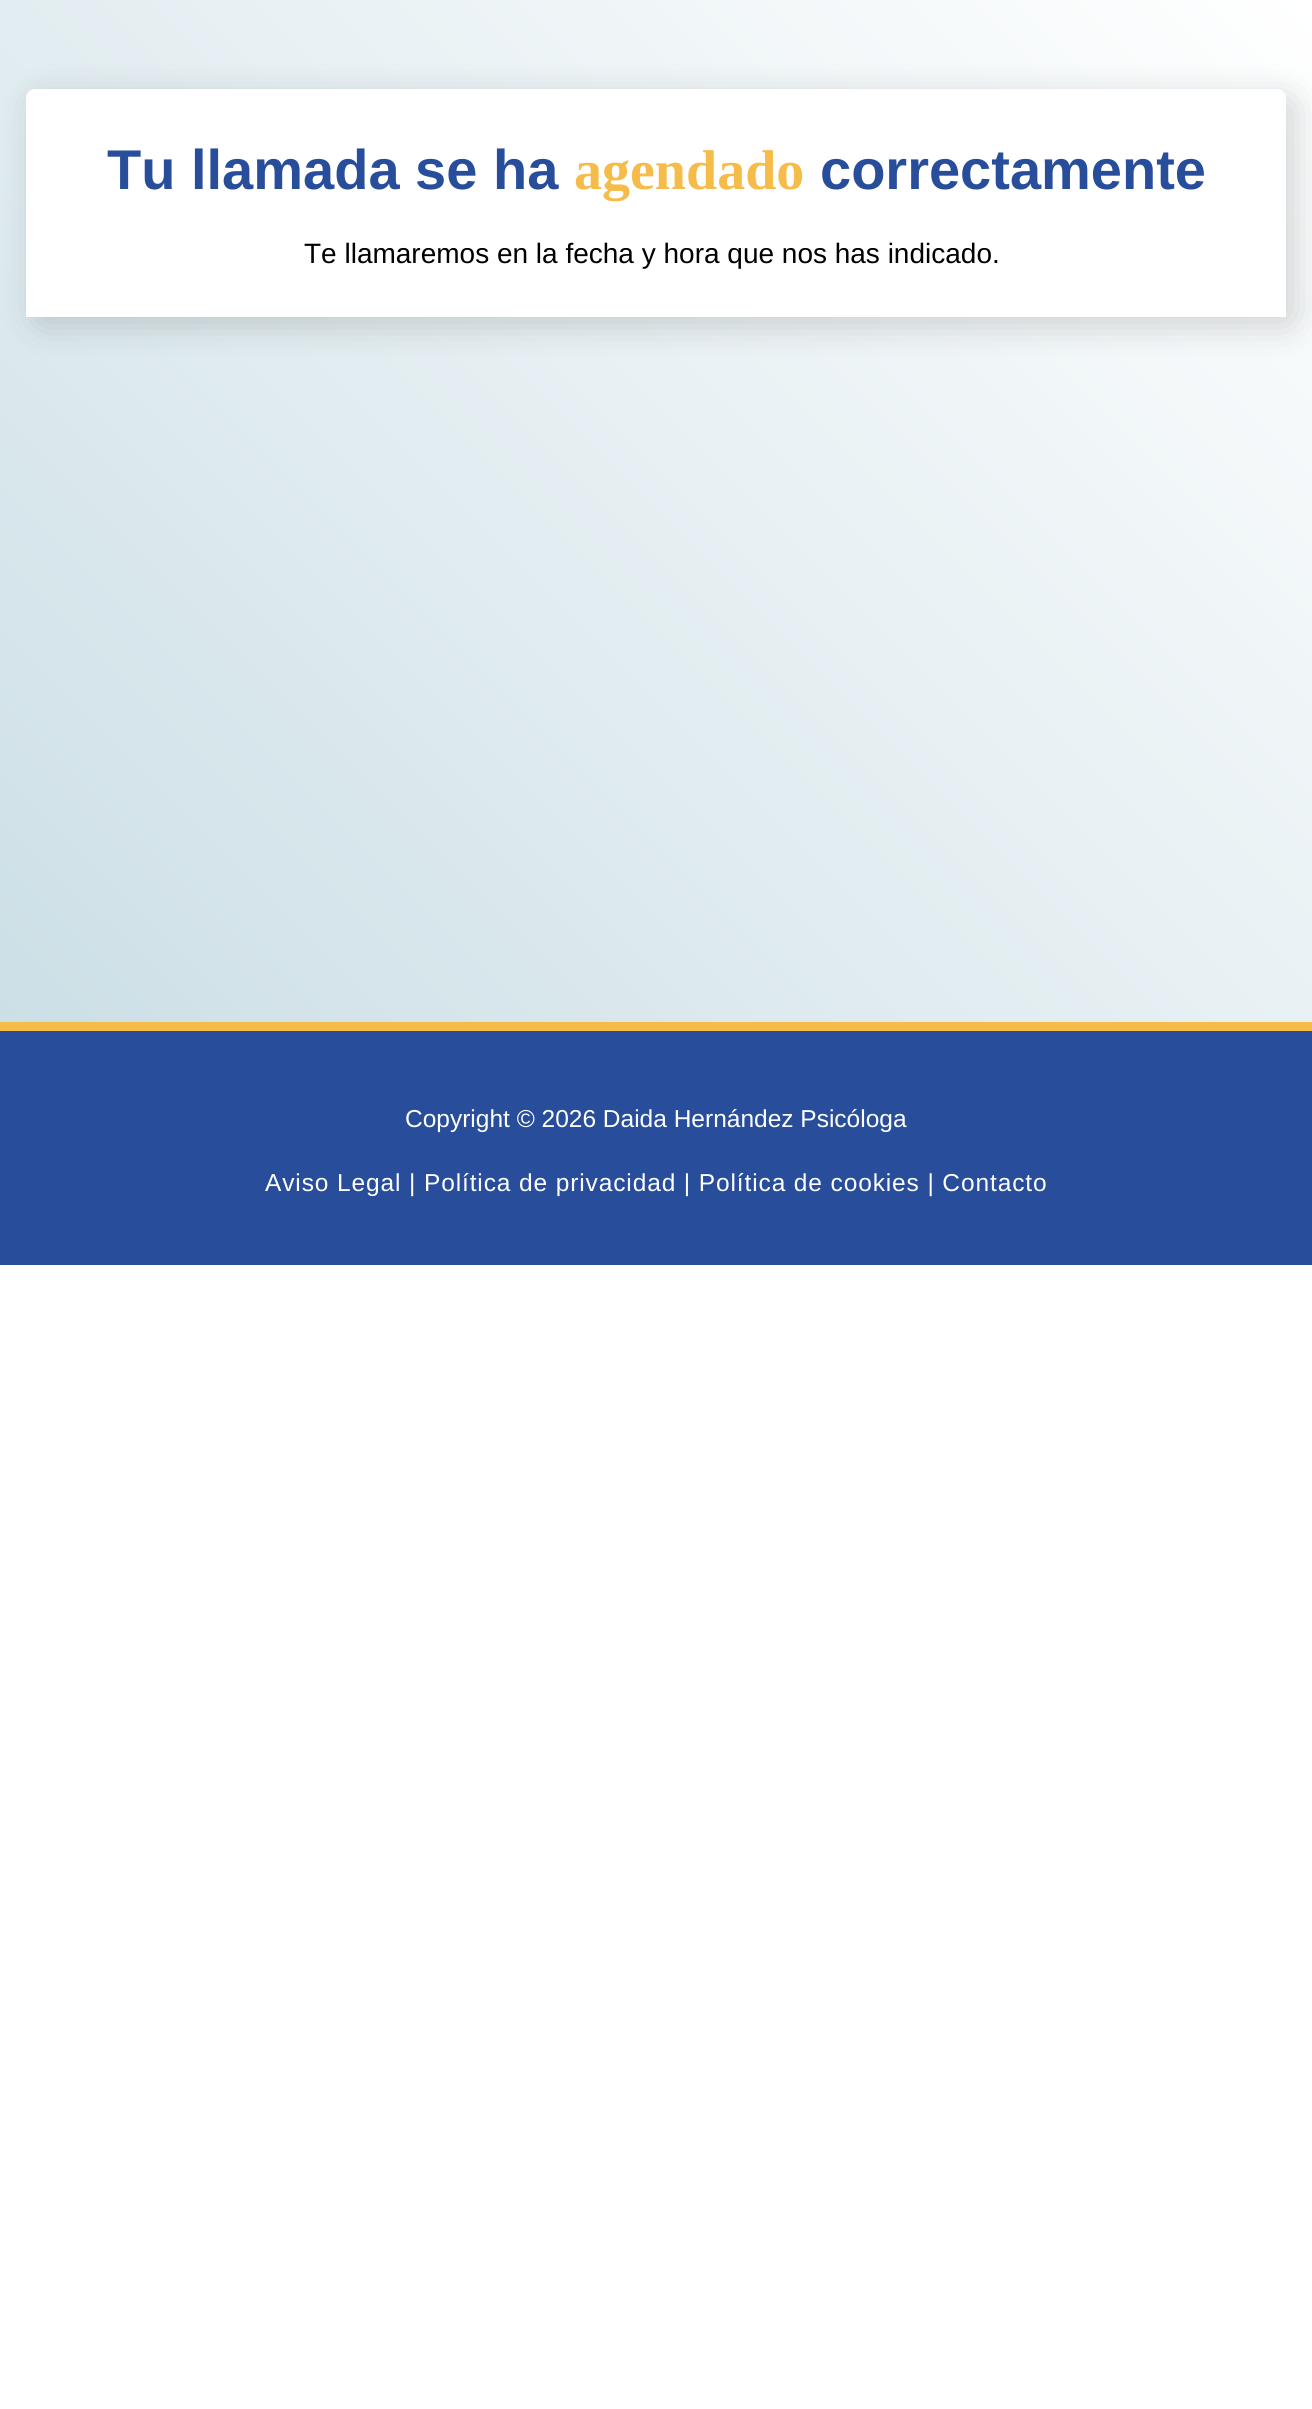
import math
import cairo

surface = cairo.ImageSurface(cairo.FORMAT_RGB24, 1312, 2409)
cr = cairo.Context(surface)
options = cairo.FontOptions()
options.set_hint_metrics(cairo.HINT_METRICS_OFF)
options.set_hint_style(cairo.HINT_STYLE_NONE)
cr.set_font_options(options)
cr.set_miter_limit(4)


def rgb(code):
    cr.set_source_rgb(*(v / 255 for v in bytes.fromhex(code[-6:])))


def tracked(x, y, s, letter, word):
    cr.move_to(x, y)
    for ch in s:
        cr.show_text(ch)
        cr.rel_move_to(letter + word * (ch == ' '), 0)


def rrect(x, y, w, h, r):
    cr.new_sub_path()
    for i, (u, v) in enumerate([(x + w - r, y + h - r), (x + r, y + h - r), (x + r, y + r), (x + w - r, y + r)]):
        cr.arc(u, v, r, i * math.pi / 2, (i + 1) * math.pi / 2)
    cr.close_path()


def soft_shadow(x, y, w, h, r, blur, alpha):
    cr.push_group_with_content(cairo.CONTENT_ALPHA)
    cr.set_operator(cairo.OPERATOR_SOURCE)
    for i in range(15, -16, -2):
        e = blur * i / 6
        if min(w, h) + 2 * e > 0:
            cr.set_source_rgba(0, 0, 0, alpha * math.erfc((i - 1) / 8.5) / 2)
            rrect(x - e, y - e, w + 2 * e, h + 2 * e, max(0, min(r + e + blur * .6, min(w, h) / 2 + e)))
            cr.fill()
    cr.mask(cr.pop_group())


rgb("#ffffff")
cr.paint()
gradient = cairo.LinearGradient(73, 1095, 1240, -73)
gradient.add_color_stop_rgba(0, 0.8, 0.875, 0.902, 1)
gradient.add_color_stop_rgba(1, 1, 1, 1, 1)
cr.set_source(gradient)
cr.rectangle(0, 0, 1312, 1022)
cr.fill()
rgb("#000000")
soft_shadow(33, 96, 1264, 231, 11, 17.5, 0.15)
rgb("#ffffff")
cr.new_path()
cr.move_to(35, 89)
cr.line_to(1277, 89)
cr.curve_to(1282, 89, 1286, 93, 1286, 98)
cr.line_to(1286, 317)
cr.line_to(26, 317)
cr.line_to(26, 98)
cr.curve_to(26, 93, 30, 89, 35, 89)
cr.close_path()
cr.fill()
rgb("#284e9b")
cr.rectangle(0, 1031, 1312, 234)
cr.fill()
rgb("#f6bc4a")
cr.rectangle(0, 1022, 1312, 9)
cr.fill()
cr.select_font_face("Liberation Sans", cairo.FONT_SLANT_NORMAL, cairo.FONT_WEIGHT_BOLD)
cr.set_font_size(56)
rgb("#284e9b")
cr.move_to(107, 189)
cr.show_text("Tu llamada se ha")
cr.select_font_face("Liberation Serif", cairo.FONT_SLANT_NORMAL, cairo.FONT_WEIGHT_BOLD)
rgb("#f6bc4a")
cr.move_to(574, 189)
cr.show_text("agendado")
cr.select_font_face("Liberation Sans", cairo.FONT_SLANT_NORMAL, cairo.FONT_WEIGHT_BOLD)
rgb("#284e9b")
cr.move_to(820, 189)
cr.show_text("correctamente")
cr.select_font_face("Liberation Sans")
cr.set_font_size(28)
rgb("#000000")
cr.move_to(304, 263)
cr.show_text("Te llamaremos en la fecha y hora que nos has indicado.")
cr.set_font_size(24.5)
rgb("#ffffff")
cr.move_to(405, 1127)
cr.show_text("Copyright © 2026 Daida Hernández Psicóloga")
tracked(265, 1191, "Aviso Legal | Política de privacidad | Política de cookies | Contacto", 0.88, 0)
surface.write_to_png("page.png")
